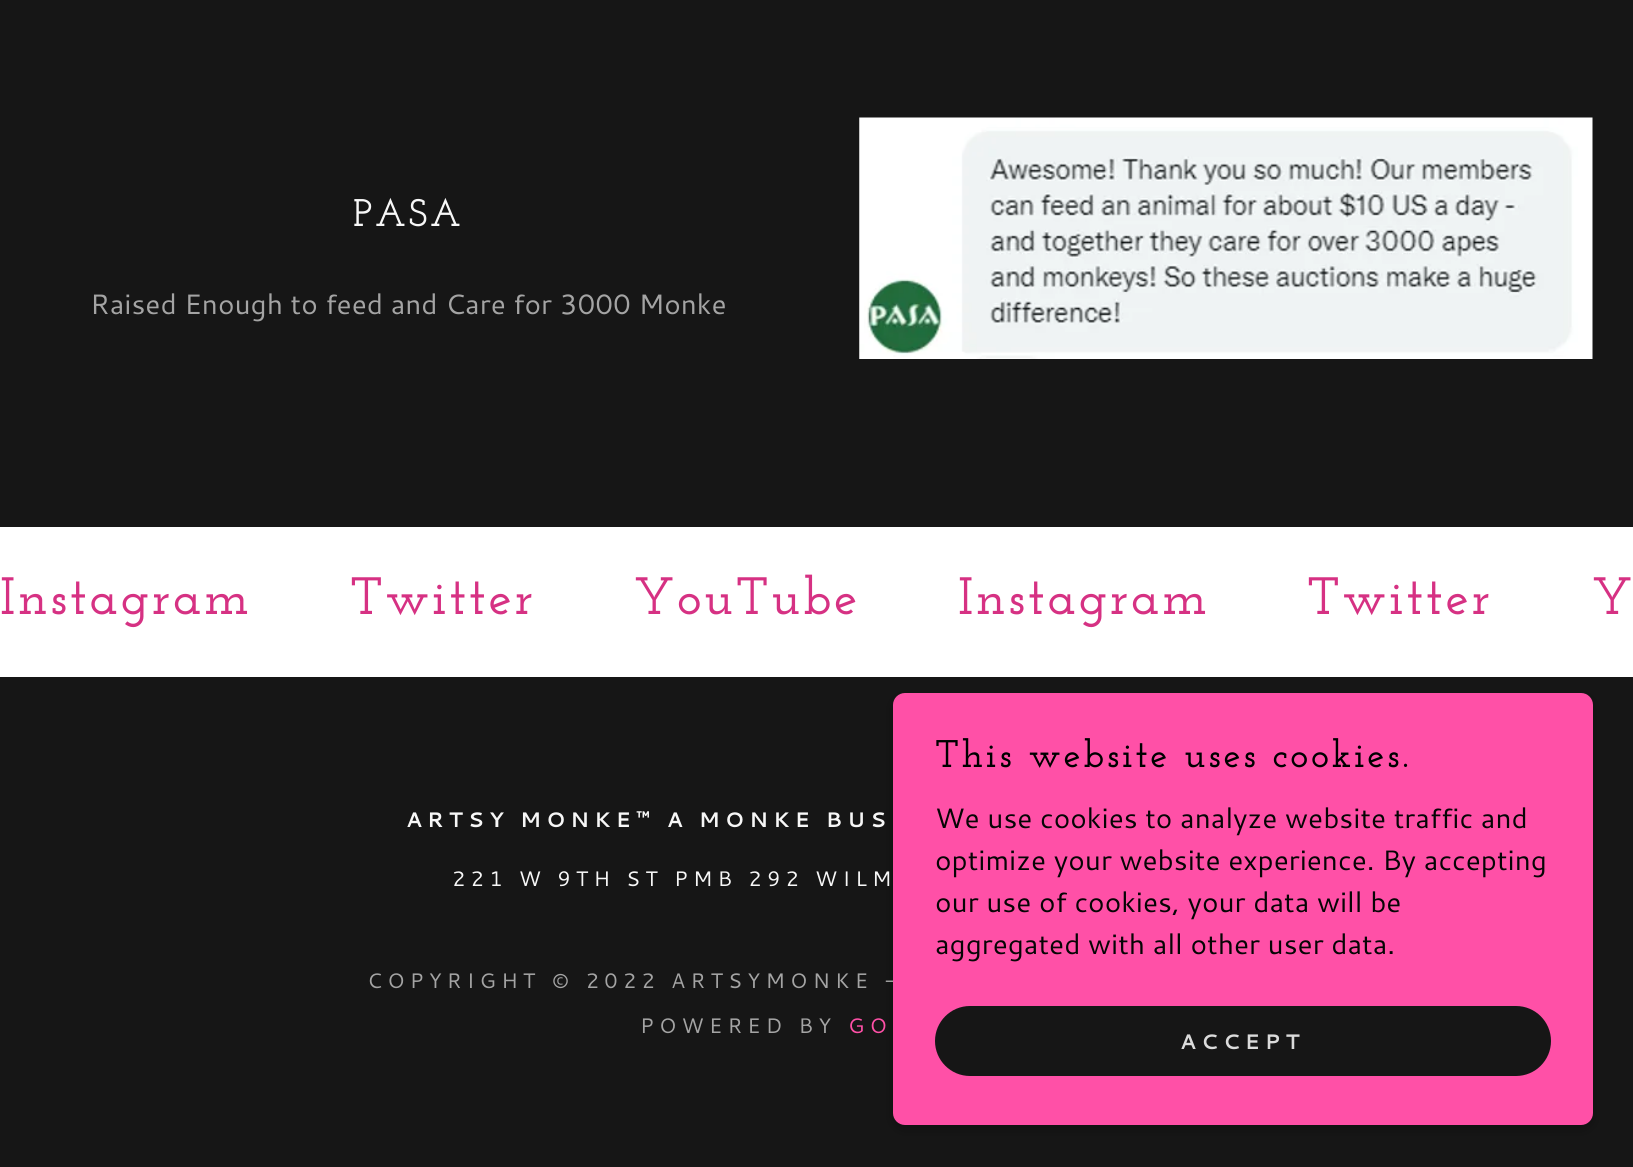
import math
import cairo

surface = cairo.ImageSurface(cairo.FORMAT_RGB24, 1633, 1167)
cr = cairo.Context(surface)
options = cairo.FontOptions()
options.set_hint_metrics(cairo.HINT_METRICS_OFF)
options.set_hint_style(cairo.HINT_STYLE_NONE)
cr.set_font_options(options)
cr.set_miter_limit(4)


def rgb(code):
    cr.set_source_rgb(*(v / 255 for v in bytes.fromhex(code[-6:])))


def tracked(x, y, s, letter, word):
    cr.move_to(x, y)
    for ch in s:
        cr.show_text(ch)
        cr.rel_move_to(letter + word * (ch == ' '), 0)


def rrect(x, y, w, h, r):
    cr.new_sub_path()
    for i, (u, v) in enumerate([(x + w - r, y + h - r), (x + r, y + h - r), (x + r, y + r), (x + w - r, y + r)]):
        cr.arc(u, v, r, i * math.pi / 2, (i + 1) * math.pi / 2)
    cr.close_path()


def soft_shadow(x, y, w, h, r, blur, alpha):
    cr.push_group_with_content(cairo.CONTENT_ALPHA)
    cr.set_operator(cairo.OPERATOR_SOURCE)
    for i in range(15, -16, -2):
        e = blur * i / 6
        if min(w, h) + 2 * e > 0:
            cr.set_source_rgba(0, 0, 0, alpha * math.erfc((i - 1) / 8.5) / 2)
            rrect(x - e, y - e, w + 2 * e, h + 2 * e, max(0, min(r + e + blur * .6, min(w, h) / 2 + e)))
            cr.fill()
    cr.mask(cr.pop_group())


def image(path, x, y, w, h):
    cr.save()
    cr.set_source_surface(cairo.ImageSurface.create_from_png(path), x, y)
    cr.rectangle(x, y, w, h)
    cr.fill()
    cr.restore()


rgb("#161616")
cr.paint()
image("img/1.png", 859, 117, 734, 242)
rgb("#ffffff")
cr.rectangle(0, 527, 1633, 150)
cr.fill()
rgb("#000000")
soft_shadow(893, 697, 700, 432, 12, 5, 0.3)
cr.select_font_face("Josefin Slab Thin")
cr.set_font_size(38.5)
rgb("#f7f7f7")
tracked(353, 226, "PASA", 2.6, 0)
cr.select_font_face("Cantarell")
cr.set_font_size(28)
rgb("#a4a4a4")
cr.move_to(90, 314)
cr.show_text("Raised Enough to feed and Care for 3000 Monke")
cr.select_font_face("Josefin Slab Thin")
cr.set_font_size(52.5)
rgb("#d63183")
for x, y, s in [
    (0, 614, "Instagram"),
    (350, 614, "Twitter"),
    (634, 614, "YouTube"),
    (958, 614, "Instagram"),
    (1307, 614, "Twitter"),
    (1592, 614, "Y"),
]:
    tracked(x, y, s, 2.6, 0)
cr.select_font_face("Cantarell", cairo.FONT_SLANT_NORMAL, cairo.FONT_WEIGHT_BOLD)
cr.set_font_size(21)
rgb("#f7f7f7")
tracked(406, 827, "ARTSY MONKE™ A MONKE BUS", 5.25, 0)
cr.select_font_face("Cantarell")
tracked(452, 886, "221 W 9TH ST PMB 292 WILM", 5.25, 0)
rgb("#a4a4a4")
tracked(367, 988, "COPYRIGHT © 2022 ARTSYMONKE -", 5.25, 0)
tracked(640, 1033, "POWERED BY", 5.25, 0)
rgb("#ff50a7")
tracked(848, 1033, "GO", 5.25, 0)
rrect(893, 693, 700, 432, 12)
cr.fill()
cr.select_font_face("Josefin Slab Thin")
cr.set_font_size(38.5)
rgb("#000000")
tracked(935, 767, "This website uses cookies.", 2.6, 0)
cr.select_font_face("Cantarell")
cr.set_font_size(28)
rgb("#060505")
for x, y, s in [
    (935, 828, "We use cookies to analyze website traffic and"),
    (935, 870, "optimize your website experience. By accepting"),
    (935, 912, "our use of cookies, your data will be"),
    (935, 954, "aggregated with all other user data."),
]:
    cr.move_to(x, y)
    cr.show_text(s)
rgb("#161616")
rrect(935, 1006, 616, 70, 35)
cr.fill()
cr.select_font_face("Cantarell", cairo.FONT_SLANT_NORMAL, cairo.FONT_WEIGHT_BOLD)
cr.set_font_size(21)
rgb("#dbdbdb")
tracked(1180, 1049, "ACCEPT", 5.25, 0)
surface.write_to_png("page.png")
